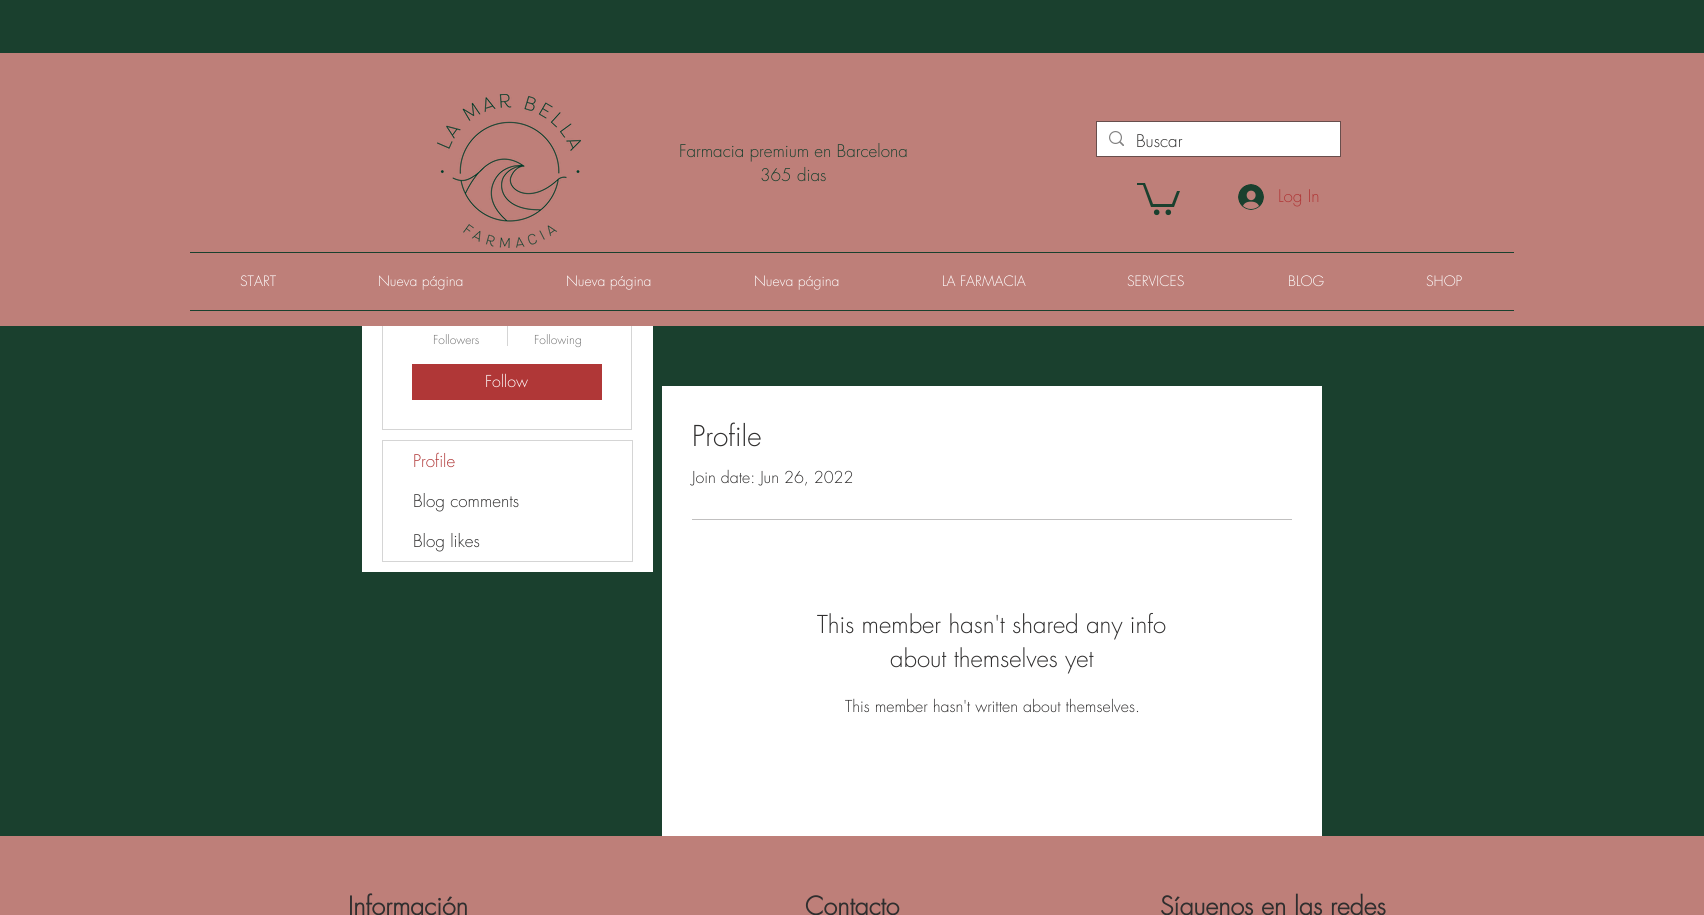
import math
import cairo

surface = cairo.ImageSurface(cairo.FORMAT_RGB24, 1704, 915)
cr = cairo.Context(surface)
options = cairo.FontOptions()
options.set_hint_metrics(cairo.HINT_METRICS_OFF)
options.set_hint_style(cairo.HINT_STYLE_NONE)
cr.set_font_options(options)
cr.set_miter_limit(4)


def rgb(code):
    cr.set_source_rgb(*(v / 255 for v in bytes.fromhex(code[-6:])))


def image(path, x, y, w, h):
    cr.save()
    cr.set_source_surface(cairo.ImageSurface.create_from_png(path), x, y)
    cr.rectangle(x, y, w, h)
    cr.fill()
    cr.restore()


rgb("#1a402e")
cr.paint()
rgb("#ffffff")
cr.rectangle(362, 326, 291, 246)
cr.fill()
cr.rectangle(382.5, 140.5, 249, 289)
rgb("#d5d5d5")
cr.set_line_width(1)
cr.stroke()
rgb("#be7f79")
cr.rectangle(0, 53, 1704, 273)
cr.fill()
image("img/1.png", 437, 94, 144, 154)
cr.rectangle(1096.5, 121.5, 244, 35)
rgb("#684e4c")
cr.stroke()
rgb("#ffffff")
cr.rectangle(1097, 122, 243, 34)
cr.fill()
image("img/2.png", 1109, 131, 15, 15)
rgb("#1a402e")
cr.new_path()
cr.move_to(1180, 191)
cr.line_to(1174, 207)
cr.line_to(1151, 207)
cr.line_to(1143, 185)
cr.line_to(1137, 185)
cr.line_to(1137, 183)
cr.line_to(1145, 183)
cr.line_to(1153, 204)
cr.line_to(1172, 204)
cr.line_to(1177, 191)
cr.fill()
cr.arc(1168.3, 212.3, 2.8, 0, 2 * math.pi)
cr.fill()
cr.arc(1156.7, 212.3, 2.8, 0, 2 * math.pi)
cr.fill()
image("img/3.png", 1238, 184, 26, 26)
for x, y, w, h, color in [
    (190, 252, 1324, 1, "#1a402e"),
    (190, 310, 1324, 1, "#1a402e"),
    (507, 326, 1, 20, "#d5d5d5"),
    (412, 364, 190, 36, "#b03737"),
]:
    rgb(color)
    cr.rectangle(x, y, w, h)
    cr.fill()
cr.rectangle(382.5, 440.5, 250, 121)
rgb("#d5d5d5")
cr.stroke()
for x, y, w, h, color in [
    (662, 386, 660, 450, "#ffffff"),
    (692, 519, 600, 1, "#c1c0c0"),
    (0, 836, 1704, 79, "#be7f79"),
]:
    rgb(color)
    cr.rectangle(x, y, w, h)
    cr.fill()
cr.select_font_face("futura Light")
cr.set_font_size(17)
rgb("#2f2e2e")
cr.move_to(1136, 147)
cr.show_text("Buscar")
rgb("#1a402e")
cr.move_to(679, 157)
cr.show_text("Farmacia premium en Barcelona")
cr.move_to(760, 181)
cr.show_text("365 dias")
rgb("#b03737")
cr.move_to(1278, 202)
cr.show_text("Log In")
cr.set_font_size(14)
rgb("#ffffff")
for x, y, s in [
    (240, 286, "START"),
    (378, 286, "Nueva página"),
    (566, 286, "Nueva página"),
    (754, 286, "Nueva página"),
    (942, 286, "LA FARMACIA"),
    (1127, 286, "SERVICES"),
    (1288, 286, "BLOG"),
    (1426, 286, "SHOP"),
]:
    cr.move_to(x, y)
    cr.show_text(s)
cr.set_font_size(12)
rgb("#6d6d6d")
cr.move_to(433, 344)
cr.show_text("Followers")
cr.move_to(534, 344)
cr.show_text("Following")
cr.set_font_size(16)
rgb("#ffffff")
cr.move_to(485, 387)
cr.show_text("Follow")
cr.set_font_size(17)
rgb("#b03737")
cr.move_to(413, 467)
cr.show_text("Profile")
rgb("#2f2e2e")
cr.move_to(413, 507)
cr.show_text("Blog comments")
cr.move_to(413, 547)
cr.show_text("Blog likes")
cr.set_font_size(28)
cr.move_to(692, 446)
cr.show_text("Profile")
cr.set_font_size(16)
cr.move_to(692, 483)
cr.show_text("Join date: Jun 26, 2022")
cr.set_font_size(24)
cr.move_to(817, 633)
cr.show_text("This member hasn't shared any info")
cr.move_to(890, 667)
cr.show_text("about themselves yet")
cr.set_font_size(16)
cr.move_to(845, 712)
cr.show_text("This member hasn't written about themselves.")
cr.select_font_face("futura", cairo.FONT_SLANT_NORMAL, cairo.FONT_WEIGHT_BOLD)
cr.set_font_size(25)
for x, y, s in [
    (348, 915, "Información"),
    (805, 915, "Contacto"),
    (1160, 915, "Síguenos en las redes"),
]:
    cr.move_to(x, y)
    cr.show_text(s)
surface.write_to_png("page.png")
